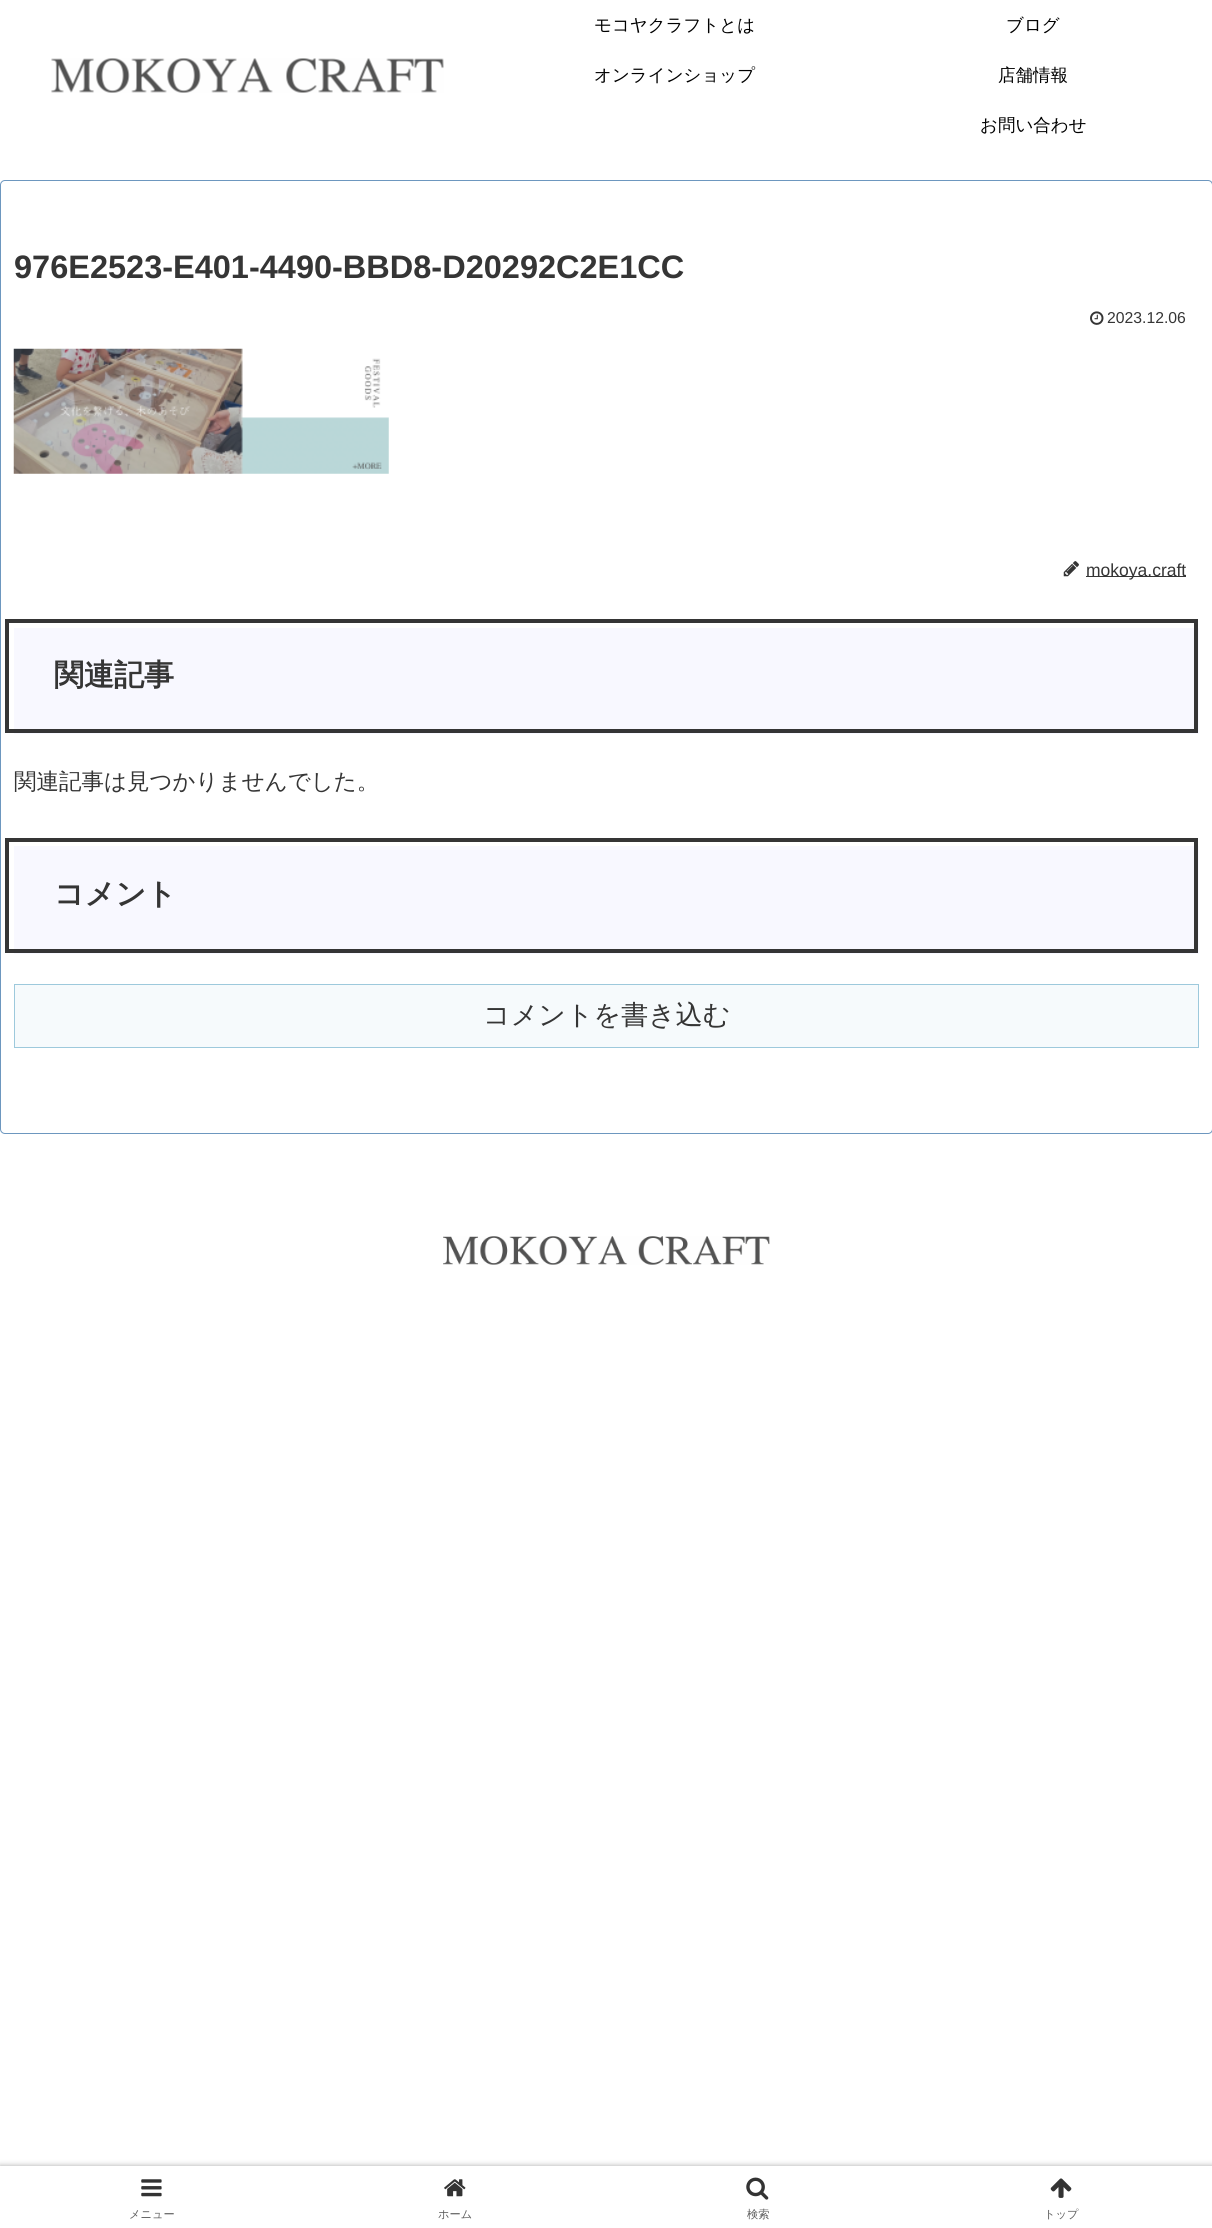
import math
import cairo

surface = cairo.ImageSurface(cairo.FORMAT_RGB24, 1212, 2228)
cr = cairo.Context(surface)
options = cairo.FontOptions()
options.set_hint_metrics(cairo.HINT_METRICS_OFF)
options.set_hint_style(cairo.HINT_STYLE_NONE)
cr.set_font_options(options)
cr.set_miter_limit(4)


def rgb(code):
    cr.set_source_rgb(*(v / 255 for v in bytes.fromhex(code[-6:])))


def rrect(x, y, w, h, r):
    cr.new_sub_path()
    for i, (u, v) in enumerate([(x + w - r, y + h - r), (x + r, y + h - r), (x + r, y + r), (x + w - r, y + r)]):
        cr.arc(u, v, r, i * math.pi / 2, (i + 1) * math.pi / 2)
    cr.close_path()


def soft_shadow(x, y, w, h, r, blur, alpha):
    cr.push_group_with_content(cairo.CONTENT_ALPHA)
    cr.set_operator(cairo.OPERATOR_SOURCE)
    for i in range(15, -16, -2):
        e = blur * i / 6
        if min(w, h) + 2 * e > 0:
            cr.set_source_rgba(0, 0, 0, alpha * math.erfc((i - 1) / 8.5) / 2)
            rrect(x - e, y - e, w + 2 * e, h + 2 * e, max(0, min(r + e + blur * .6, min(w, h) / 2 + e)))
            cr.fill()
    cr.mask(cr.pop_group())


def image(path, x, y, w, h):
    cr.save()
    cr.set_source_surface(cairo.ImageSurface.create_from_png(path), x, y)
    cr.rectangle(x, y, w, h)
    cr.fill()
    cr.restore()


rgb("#ffffff")
cr.paint()
image("img/1.png", 51, 58, 393, 35)
rrect(0.5, 180.5, 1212, 953, 4.5)
rgb("#6d97bf")
cr.set_line_width(1)
cr.stroke()
image("img/2.png", 1090, 311, 14, 14)
image("img/3.png", 13, 348, 376, 126)
image("img/4.png", 1063, 561, 16, 16)
rgb("#353535")
cr.rectangle(1086, 576, 100, 1)
cr.fill()
rgb("#f8f8ff")
cr.rectangle(14, 628, 1185, 106)
cr.fill()
cr.rectangle(7, 621, 1189, 110)
rgb("#353535")
cr.set_line_width(4)
cr.stroke()
rgb("#f8f8ff")
cr.rectangle(14, 846, 1185, 108)
cr.fill()
cr.rectangle(7, 840, 1189, 111)
rgb("#353535")
cr.stroke()
rgb("#f6fafc")
cr.rectangle(14.5, 984.5, 1184, 63)
cr.fill_preserve()
rgb("#9dc9dc")
cr.set_line_width(1)
cr.stroke()
image("img/5.png", 443, 1236, 327, 29)
rgb("#a9a9a9")
soft_shadow(0, 2166, 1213, 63, 0, 3, 1)
rgb("#ffffff")
cr.rectangle(0, 2166, 1212, 62)
cr.fill()
image("img/6.png", 141, 2179, 21, 18)
image("img/7.png", 444, 2179, 22, 18)
image("img/8.png", 746, 2177, 23, 23)
image("img/9.png", 1050, 2178, 22, 20)
cr.select_font_face("WenQuanYi Zen Hei Medium")
cr.set_font_size(17.5)
rgb("#000000")
for x, y, s in [
    (594, 31, "モコヤクラフトとは"),
    (1006, 31, "ブログ"),
    (594, 81, "オンラインショップ"),
    (998, 81, "店舗情報"),
    (980, 131, "お問い合わせ"),
]:
    cr.move_to(x, y)
    cr.show_text(s)
cr.select_font_face("Liberation Sans", cairo.FONT_SLANT_NORMAL, cairo.FONT_WEIGHT_BOLD)
cr.set_font_size(32.5)
rgb("#353535")
cr.move_to(14, 278)
cr.show_text("976E2523-E401-4490-BBD8-D20292C2E1CC")
cr.select_font_face("Liberation Sans")
cr.set_font_size(15.75)
cr.move_to(1107, 323)
cr.show_text("2023.12.06")
cr.set_font_size(17.5)
cr.move_to(1086, 576)
cr.show_text("mokoya.craft")
cr.select_font_face("WenQuanYi Zen Hei", cairo.FONT_SLANT_NORMAL, cairo.FONT_WEIGHT_BOLD)
cr.set_font_size(30)
cr.move_to(54, 685)
cr.show_text("関連記事")
cr.select_font_face("WenQuanYi Zen Hei Medium")
cr.set_font_size(22.5)
cr.move_to(14, 789)
cr.show_text("関連記事は見つかりませんでした。")
cr.select_font_face("WenQuanYi Zen Hei", cairo.FONT_SLANT_NORMAL, cairo.FONT_WEIGHT_BOLD)
cr.set_font_size(30)
cr.move_to(54, 904)
cr.show_text("コメント")
cr.select_font_face("WenQuanYi Zen Hei Medium")
cr.set_font_size(27)
cr.move_to(483, 1024)
cr.show_text("コメントを書き込む")
cr.set_font_size(11.25)
rgb("#5c5c5c")
for x, y, s in [
    (129, 2218, "メニュー"),
    (438, 2218, "ホーム"),
    (747, 2218, "検索"),
    (1044, 2218, "トップ"),
]:
    cr.move_to(x, y)
    cr.show_text(s)
surface.write_to_png("page.png")
